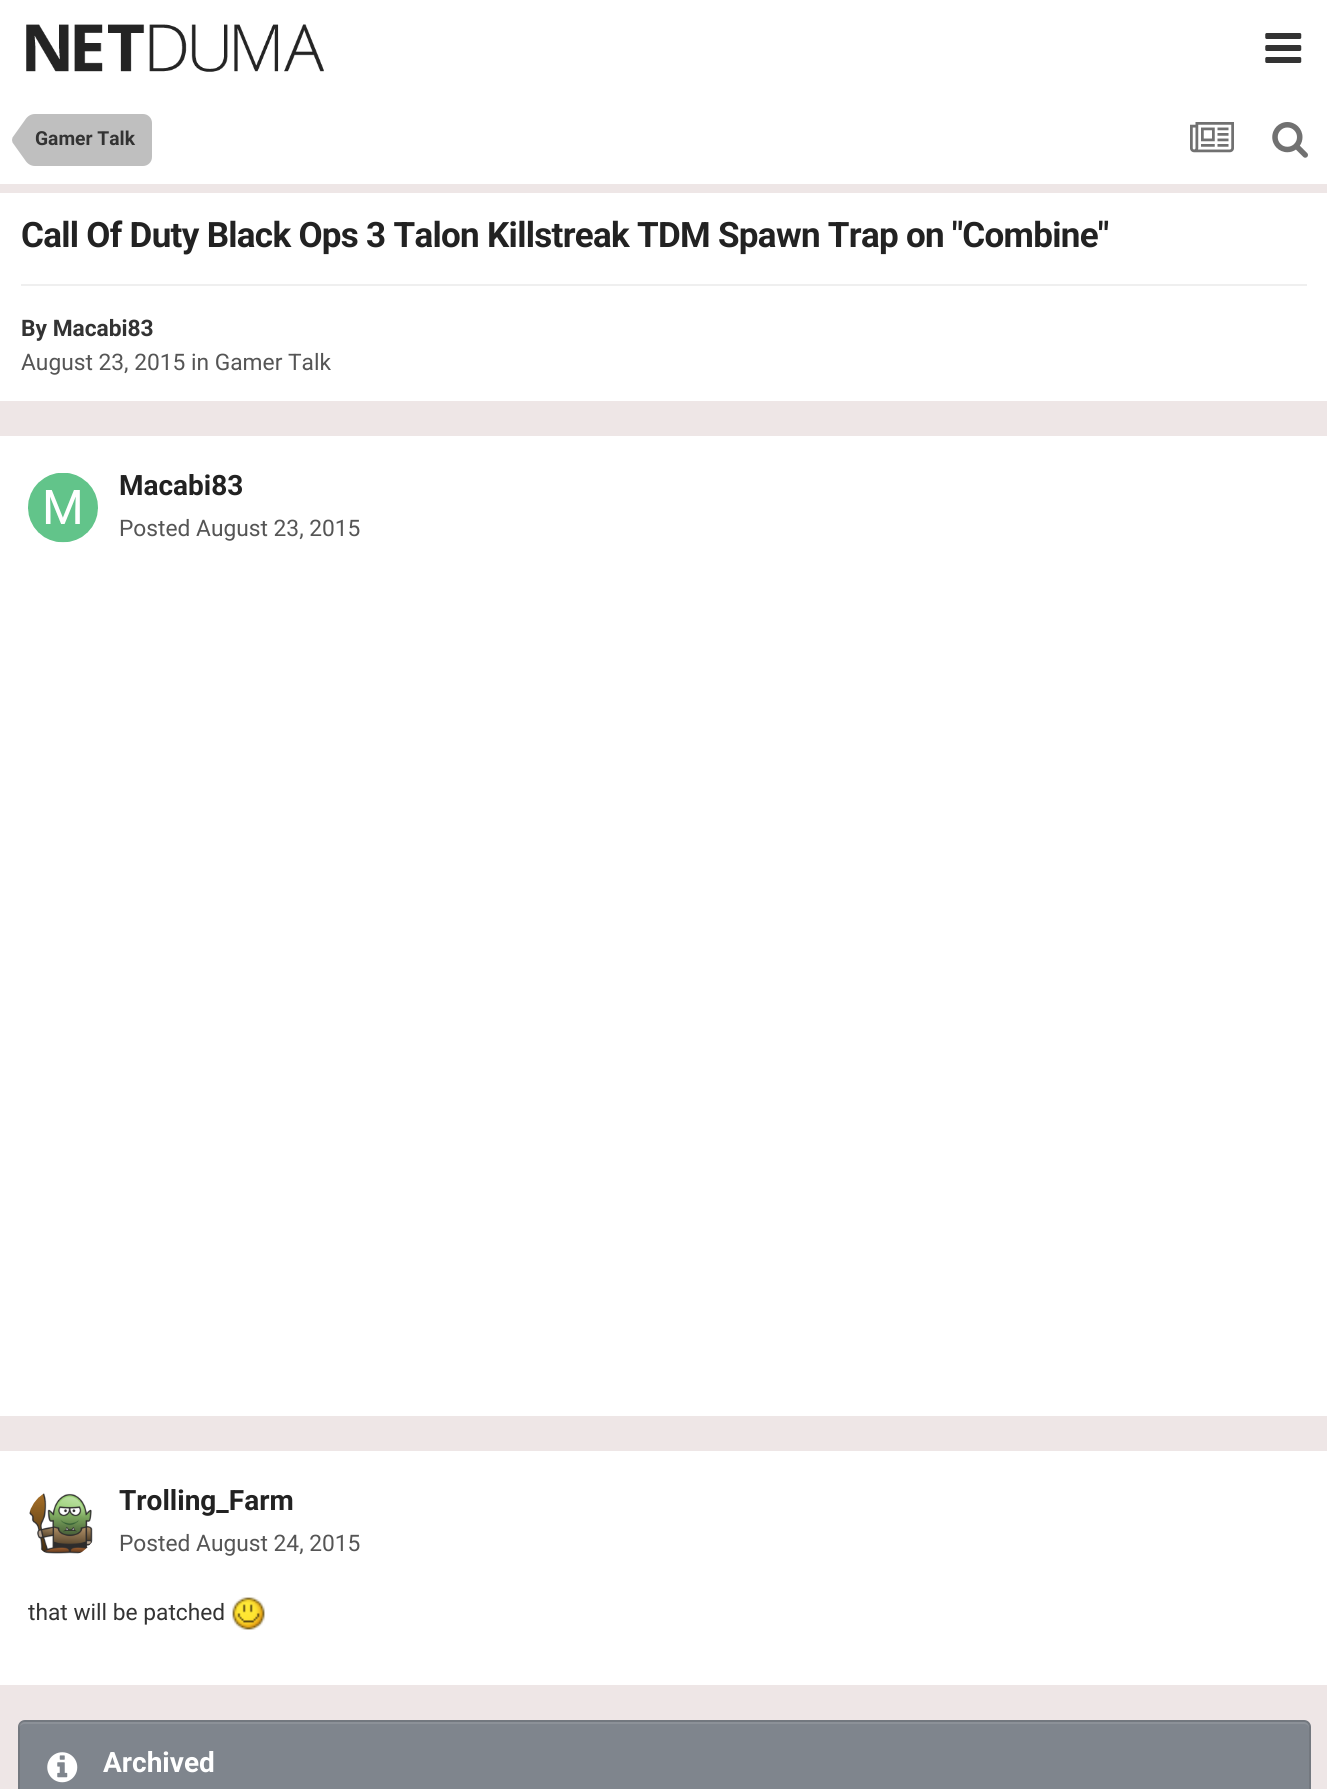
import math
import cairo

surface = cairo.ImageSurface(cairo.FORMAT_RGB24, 1327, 1789)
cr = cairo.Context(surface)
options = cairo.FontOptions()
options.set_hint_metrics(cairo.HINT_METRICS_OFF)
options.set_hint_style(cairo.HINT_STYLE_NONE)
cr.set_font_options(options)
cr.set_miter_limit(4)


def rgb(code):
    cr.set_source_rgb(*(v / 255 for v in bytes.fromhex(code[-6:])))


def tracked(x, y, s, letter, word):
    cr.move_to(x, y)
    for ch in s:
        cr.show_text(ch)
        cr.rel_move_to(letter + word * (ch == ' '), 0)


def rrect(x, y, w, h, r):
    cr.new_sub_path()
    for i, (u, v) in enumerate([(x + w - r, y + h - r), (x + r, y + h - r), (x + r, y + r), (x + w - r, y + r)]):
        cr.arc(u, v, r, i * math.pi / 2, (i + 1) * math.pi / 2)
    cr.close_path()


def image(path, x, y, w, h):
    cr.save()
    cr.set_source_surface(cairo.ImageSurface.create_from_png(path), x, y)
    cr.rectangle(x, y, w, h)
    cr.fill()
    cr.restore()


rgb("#eee6e6")
cr.paint()
rgb("#ffffff")
cr.rectangle(0, 0, 1327, 184)
cr.fill()
image("img/1.png", 26, 24, 298, 48)
image("img/2.png", 1265, 33, 37, 30)
rgb("#bfbfbf")
cr.new_path()
cr.move_to(35, 114)
cr.line_to(143, 114)
cr.curve_to(148, 114, 152, 118, 152, 123)
cr.line_to(152, 157)
cr.curve_to(152, 162, 148, 166, 143, 166)
cr.line_to(35, 166)
cr.close_path()
cr.fill()
cr.new_path()
cr.move_to(35, 140)
cr.line_to(35, 166)
cr.curve_to(31, 166, 27.5, 164, 25, 160)
cr.line_to(12.5, 142.5)
cr.line_to(12, 140)
cr.close_path()
cr.move_to(35, 140)
cr.line_to(12, 140)
cr.line_to(12.5, 137.5)
cr.line_to(25, 120)
cr.curve_to(27.5, 116, 31, 114, 35, 114)
cr.close_path()
cr.fill()
image("img/3.png", 1190, 122, 44, 31)
image("img/4.png", 1272, 122, 36, 36)
for x, y, w, h, color in [
    (0, 193, 1327, 208, "#ffffff"),
    (21, 284, 1286, 2, "#efefef"),
    (0, 436, 1327, 980, "#ffffff"),
]:
    rgb(color)
    cr.rectangle(x, y, w, h)
    cr.fill()
image("img/5.png", 28, 473, 70, 70)
cr.rectangle(0, 1451, 1327, 234)
cr.fill()
image("img/6.png", 29, 1493, 64, 61)
image("img/7.png", 232, 1597, 33, 33)
rgb("#7f858d")
rrect(18, 1720, 1293, 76, 7)
cr.fill()
rgb("#8c9198")
cr.new_path()
cr.move_to(24, 1724)
cr.line_to(1304, 1724)
cr.curve_to(1307, 1724, 1309, 1726, 1309, 1729)
cr.line_to(1309, 1727)
cr.curve_to(1309, 1724, 1307, 1722, 1304, 1722)
cr.line_to(24, 1722)
cr.curve_to(21, 1722, 19, 1724, 19, 1727)
cr.line_to(19, 1729)
cr.curve_to(19, 1726, 22, 1724, 24, 1724)
cr.close_path()
cr.fill()
rrect(19, 1721, 1291, 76, 6)
cr.set_source_rgba(0, 0, 0, 0.1)
cr.stroke()
image("img/8.png", 47, 1752, 31, 31)
cr.select_font_face("Roboto", cairo.FONT_SLANT_NORMAL, cairo.FONT_WEIGHT_BOLD)
cr.set_font_size(19.25)
rgb("#333333")
cr.move_to(35, 145)
cr.show_text("Gamer Talk")
cr.set_font_size(35)
rgb("#222222")
tracked(21, 247, "Call Of Duty Black Ops 3 Talon Killstreak TDM Spawn Trap on \"Combine\"", -0.7, 0)
cr.set_font_size(22.75)
rgb("#333333")
cr.move_to(21, 336)
cr.show_text("By Macabi83")
cr.select_font_face("Roboto")
rgb("#555555")
cr.move_to(21, 370)
cr.show_text("August 23, 2015 in Gamer Talk")
cr.select_font_face("Roboto", cairo.FONT_SLANT_NORMAL, cairo.FONT_WEIGHT_BOLD)
cr.set_font_size(28)
rgb("#222222")
cr.move_to(119, 495)
cr.show_text("Macabi83")
cr.select_font_face("Roboto")
cr.set_font_size(22.75)
rgb("#555555")
cr.move_to(119, 536)
cr.show_text("Posted August 23, 2015")
cr.select_font_face("Roboto", cairo.FONT_SLANT_NORMAL, cairo.FONT_WEIGHT_BOLD)
cr.set_font_size(28)
rgb("#222222")
cr.move_to(119, 1510)
cr.show_text("Trolling_Farm")
cr.select_font_face("Roboto")
cr.set_font_size(22.75)
rgb("#555555")
cr.move_to(119, 1551)
cr.show_text("Posted August 24, 2015")
rgb("#333333")
cr.move_to(28, 1620)
cr.show_text("that will be patched")
cr.select_font_face("Roboto", cairo.FONT_SLANT_NORMAL, cairo.FONT_WEIGHT_BOLD)
cr.set_font_size(28)
rgb("#ffffff")
cr.move_to(103, 1772)
cr.show_text("Archived")
surface.write_to_png("page.png")
